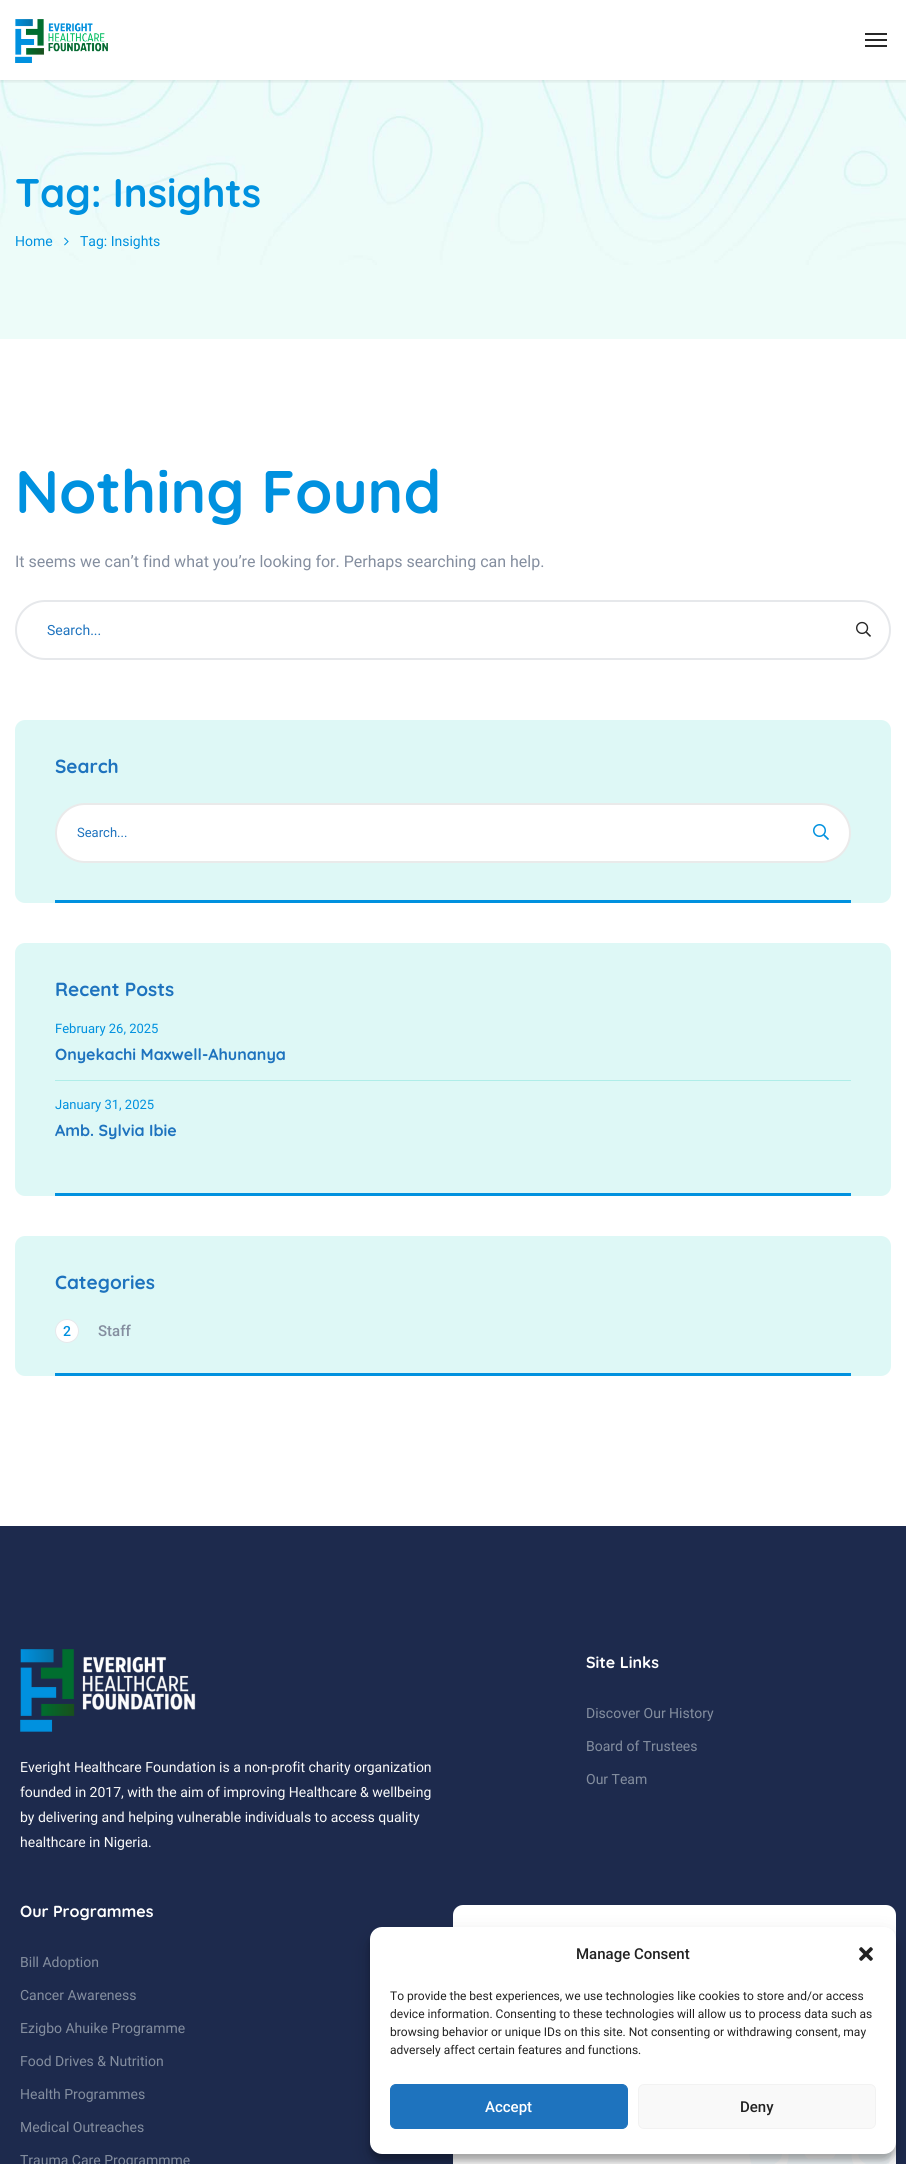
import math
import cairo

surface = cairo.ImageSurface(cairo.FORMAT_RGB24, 906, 2164)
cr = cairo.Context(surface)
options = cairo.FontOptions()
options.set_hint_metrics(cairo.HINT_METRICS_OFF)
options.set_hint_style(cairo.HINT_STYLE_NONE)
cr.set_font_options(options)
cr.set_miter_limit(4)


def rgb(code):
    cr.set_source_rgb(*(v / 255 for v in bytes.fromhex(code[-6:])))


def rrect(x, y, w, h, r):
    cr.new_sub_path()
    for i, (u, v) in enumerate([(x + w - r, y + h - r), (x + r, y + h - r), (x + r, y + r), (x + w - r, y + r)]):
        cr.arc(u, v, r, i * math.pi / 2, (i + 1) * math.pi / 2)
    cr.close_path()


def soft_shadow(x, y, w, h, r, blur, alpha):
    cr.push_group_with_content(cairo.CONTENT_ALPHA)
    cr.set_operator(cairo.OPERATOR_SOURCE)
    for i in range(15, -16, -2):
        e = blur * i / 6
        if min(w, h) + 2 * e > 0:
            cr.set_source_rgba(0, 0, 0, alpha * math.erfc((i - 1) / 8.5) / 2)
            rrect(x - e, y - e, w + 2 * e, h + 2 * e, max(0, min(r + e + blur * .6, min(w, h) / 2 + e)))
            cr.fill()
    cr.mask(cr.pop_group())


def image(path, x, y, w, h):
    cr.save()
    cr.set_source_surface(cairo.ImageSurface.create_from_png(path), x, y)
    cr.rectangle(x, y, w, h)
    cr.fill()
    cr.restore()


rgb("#ffffff")
cr.paint()
image("img/2.png", 0, 80, 906, 259)
cr.save()
cr.rectangle(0, 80, 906, 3)
cr.clip()
rgb("#000000")
soft_shadow(0, 0, 906, 80, 0, 2.5, 0.15)
cr.restore()
image("img/1.png", 15, 19, 93, 44)
for x, y, w, h, color in [
    (865, 33, 22, 2, "#282828"),
    (865, 39, 22, 2, "#282828"),
    (865, 45, 22, 2, "#282828"),
]:
    rgb(color)
    cr.rectangle(x, y, w, h)
    cr.fill()
image("img/3.png", 64, 237, 5, 9)
rrect(16, 601, 874, 58, 29)
rgb("#e6e8eb")
cr.stroke()
image("img/4.png", 856, 621, 15, 16)
rgb("#def8f6")
rrect(15, 720, 876, 183, 10)
cr.fill()
rgb("#ffffff")
rrect(56, 804, 794, 58, 29)
cr.fill_preserve()
rgb("#eaeaea")
cr.stroke()
image("img/5.png", 813, 824, 16, 16)
rgb("#0091df")
cr.rectangle(55, 900, 796, 3)
cr.fill()
rgb("#def8f6")
rrect(15, 943, 876, 253, 10)
cr.fill()
rgb("#afede8")
cr.rectangle(55, 1080, 796, 1)
cr.fill()
rgb("#0091df")
cr.rectangle(55, 1193, 796, 3)
cr.fill()
rgb("#def8f6")
rrect(15, 1236, 876, 140, 10)
cr.fill()
rgb("#ffffff")
cr.arc(67, 1331, 11.5, 0, 2 * math.pi)
cr.fill_preserve()
rgb("#e6e8eb")
cr.set_line_width(1)
cr.stroke()
rgb("#0091df")
cr.rectangle(55, 1373, 796, 3)
cr.fill()
rgb("#1d2a4d")
cr.rectangle(0, 1526, 906, 638)
cr.fill()
image("img/6.png", 20, 1649, 176, 83)
rgb("#ffffff")
rrect(453, 1905, 443, 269, 10)
cr.fill()
image("img/7.png", 749, 2151, 142, 13)
rgb("#000000")
soft_shadow(370, 1933, 526, 227, 12, 3, 0.23)
soft_shadow(370, 1937, 526, 227, 12, 10, 0.19)
rgb("#ffffff")
rrect(370, 1927, 526, 227, 12)
cr.fill()
image("img/8.png", 859, 1947, 14, 14)
rgb("#1e73be")
rrect(390.5, 2084.5, 237, 44, 5.5)
cr.fill_preserve()
cr.stroke()
rgb("#f9f9f9")
rrect(638.5, 2084.5, 237, 44, 5.5)
cr.fill_preserve()
rgb("#f2f2f2")
cr.stroke()
cr.select_font_face("Quicksand", cairo.FONT_SLANT_NORMAL, cairo.FONT_WEIGHT_BOLD)
cr.set_font_size(40)
rgb("#0091df")
cr.move_to(15, 207)
cr.show_text("Tag: Insights")
cr.select_font_face("Roboto")
cr.set_font_size(14)
cr.move_to(15, 246)
cr.show_text("Home")
cr.move_to(80, 246)
cr.show_text("Tag: Insights")
cr.select_font_face("Quicksand", cairo.FONT_SLANT_NORMAL, cairo.FONT_WEIGHT_BOLD)
cr.set_font_size(60)
cr.move_to(15, 513)
cr.show_text("Nothing Found")
cr.select_font_face("Roboto")
cr.set_font_size(16)
rgb("#848e9f")
cr.move_to(15, 567)
cr.show_text("It seems we can’t find what you’re looking for. Perhaps searching can help.")
cr.set_font_size(14)
rgb("#1e73be")
cr.move_to(47, 635)
cr.show_text("Search...")
cr.select_font_face("Quicksand", cairo.FONT_SLANT_NORMAL, cairo.FONT_WEIGHT_BOLD)
cr.set_font_size(19)
cr.move_to(55, 773)
cr.show_text("Search")
cr.select_font_face("Roboto")
cr.set_font_size(13)
cr.move_to(77, 837)
cr.show_text("Search...")
cr.select_font_face("Quicksand", cairo.FONT_SLANT_NORMAL, cairo.FONT_WEIGHT_BOLD)
cr.set_font_size(19)
cr.move_to(55, 996)
cr.show_text("Recent Posts")
cr.select_font_face("Roboto")
cr.set_font_size(13)
rgb("#0091df")
cr.move_to(55, 1033)
cr.show_text("February 26, 2025")
cr.select_font_face("Quicksand", cairo.FONT_SLANT_NORMAL, cairo.FONT_WEIGHT_BOLD)
cr.set_font_size(16)
rgb("#1e73be")
cr.move_to(55, 1060)
cr.show_text("Onyekachi Maxwell-Ahunanya")
cr.select_font_face("Roboto")
cr.set_font_size(13)
rgb("#0091df")
cr.move_to(55, 1109)
cr.show_text("January 31, 2025")
cr.select_font_face("Quicksand", cairo.FONT_SLANT_NORMAL, cairo.FONT_WEIGHT_BOLD)
cr.set_font_size(16)
rgb("#1e73be")
cr.move_to(55, 1136)
cr.show_text("Amb. Sylvia Ibie")
cr.set_font_size(19)
cr.move_to(55, 1289)
cr.show_text("Categories")
cr.select_font_face("Roboto Medium")
cr.set_font_size(14)
rgb("#0091df")
cr.move_to(63, 1336)
cr.show_text("2")
cr.set_font_size(15)
rgb("#848e9f")
cr.move_to(98, 1336)
cr.show_text("Staff")
cr.select_font_face("Quicksand", cairo.FONT_SLANT_NORMAL, cairo.FONT_WEIGHT_BOLD)
cr.set_font_size(16)
rgb("#ffffff")
cr.move_to(586, 1668)
cr.show_text("Site Links")
cr.select_font_face("Roboto")
cr.set_font_size(14)
rgb("#848e9f")
for x, y, s in [
    (586, 1718, "Discover Our History"),
    (586, 1751, "Board of Trustees"),
    (586, 1784, "Our Team"),
]:
    cr.move_to(x, y)
    cr.show_text(s)
rgb("#f9f9f9")
for x, y, s in [
    (20, 1772, "Everight Healthcare Foundation is a non-profit charity organization"),
    (20, 1797, "founded in 2017, with the aim of improving Healthcare & wellbeing"),
    (20, 1822, "by delivering and helping vulnerable individuals to access quality"),
    (20, 1847, "healthcare in Nigeria."),
]:
    cr.move_to(x, y)
    cr.show_text(s)
cr.select_font_face("Quicksand", cairo.FONT_SLANT_NORMAL, cairo.FONT_WEIGHT_BOLD)
cr.set_font_size(16)
rgb("#ffffff")
cr.move_to(20, 1917)
cr.show_text("Our Programmes")
cr.select_font_face("Roboto")
cr.set_font_size(14)
rgb("#848e9f")
for x, y, s in [
    (20, 1967, "Bill Adoption"),
    (20, 2000, "Cancer Awareness"),
    (20, 2033, "Ezigbo Ahuike Programme"),
    (20, 2066, "Food Drives & Nutrition"),
    (20, 2099, "Health Programmes"),
    (20, 2132, "Medical Outreaches"),
    (20, 2165, "Trauma Care Programmme"),
]:
    cr.move_to(x, y)
    cr.show_text(s)
cr.select_font_face("Roboto Medium")
cr.set_font_size(15)
rgb("#222222")
cr.move_to(576, 1959)
cr.show_text("Manage Consent")
cr.select_font_face("Roboto")
cr.set_font_size(12)
for x, y, s in [
    (390, 2000, "To provide the best experiences, we use technologies like cookies to store and/or access"),
    (390, 2018, "device information. Consenting to these technologies will allow us to process data such as"),
    (390, 2036, "browsing behavior or unique IDs on this site. Not consenting or withdrawing consent, may"),
    (390, 2054, "adversely affect certain features and functions."),
]:
    cr.move_to(x, y)
    cr.show_text(s)
cr.select_font_face("Roboto Medium")
cr.set_font_size(15)
rgb("#ffffff")
cr.move_to(485, 2112)
cr.show_text("Accept")
rgb("#222222")
cr.move_to(740, 2112)
cr.show_text("Deny")
surface.write_to_png("page.png")
